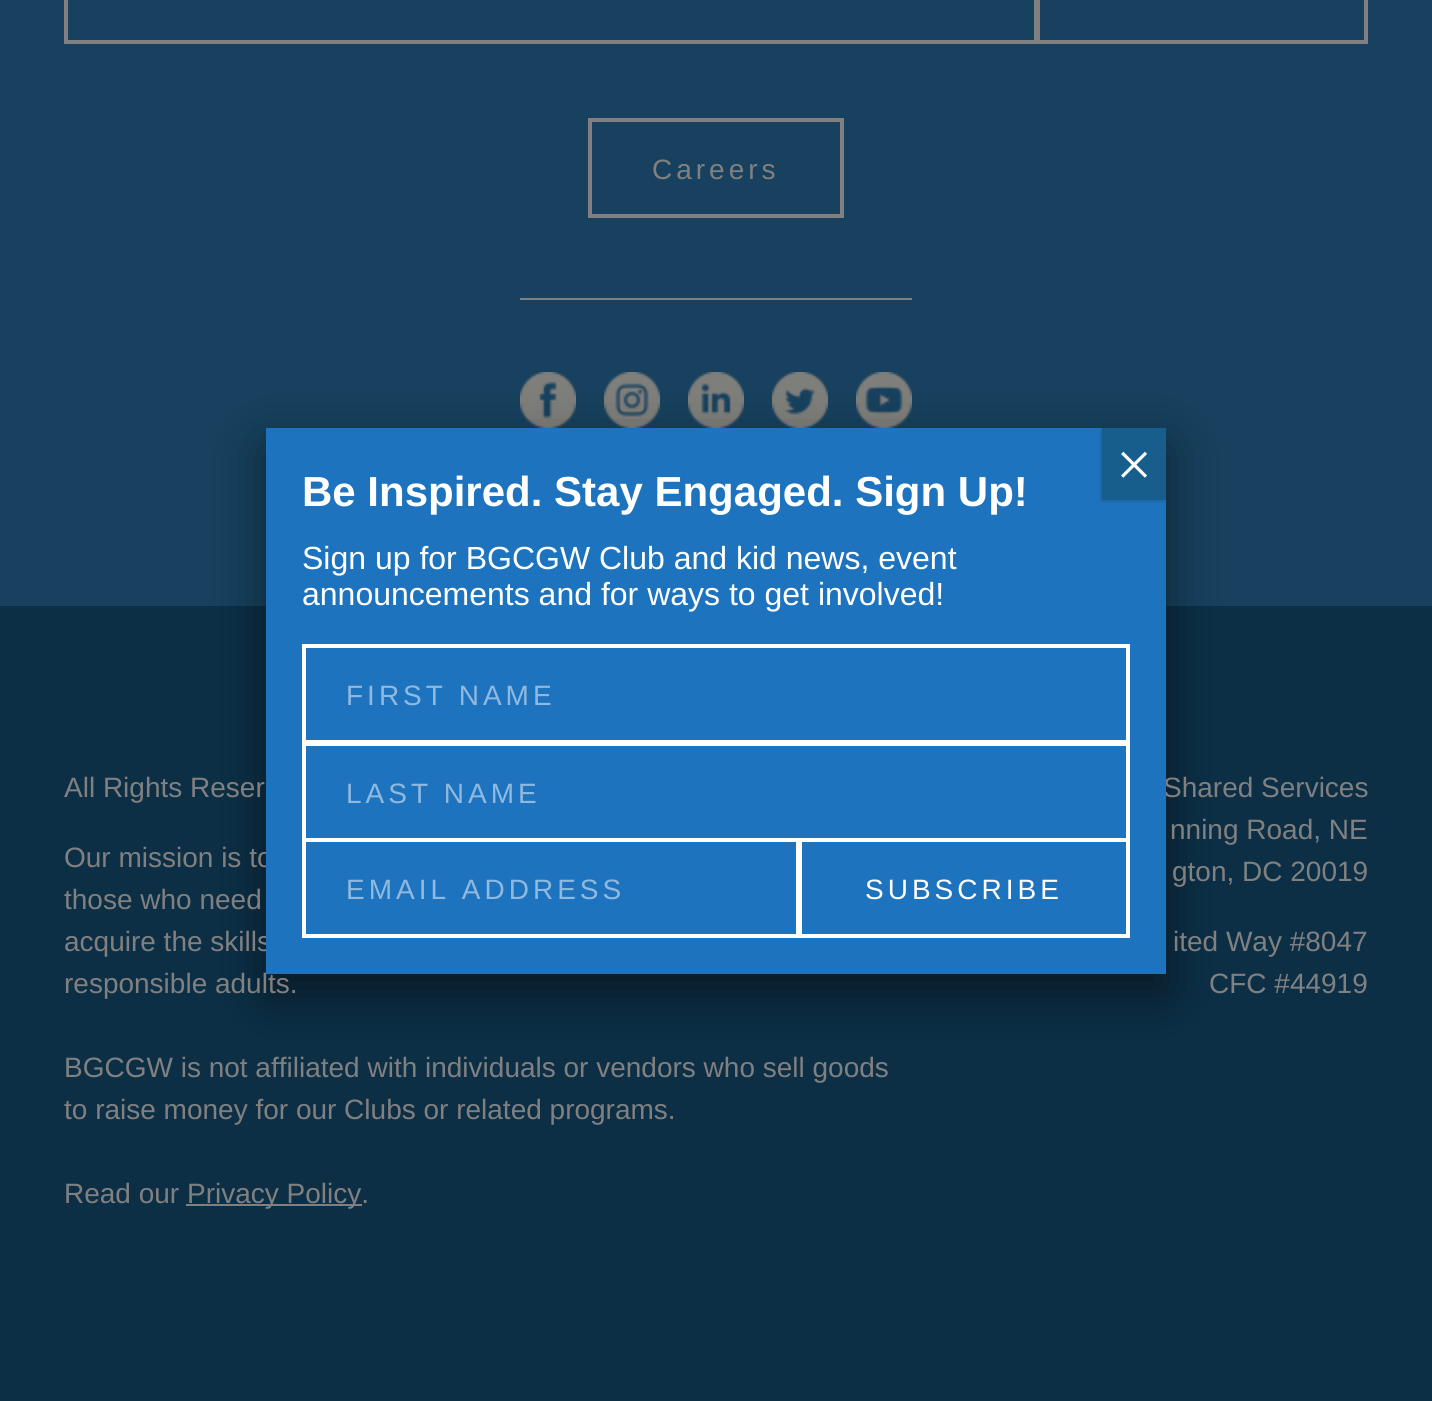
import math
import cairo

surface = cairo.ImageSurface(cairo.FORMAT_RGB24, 1432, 1401)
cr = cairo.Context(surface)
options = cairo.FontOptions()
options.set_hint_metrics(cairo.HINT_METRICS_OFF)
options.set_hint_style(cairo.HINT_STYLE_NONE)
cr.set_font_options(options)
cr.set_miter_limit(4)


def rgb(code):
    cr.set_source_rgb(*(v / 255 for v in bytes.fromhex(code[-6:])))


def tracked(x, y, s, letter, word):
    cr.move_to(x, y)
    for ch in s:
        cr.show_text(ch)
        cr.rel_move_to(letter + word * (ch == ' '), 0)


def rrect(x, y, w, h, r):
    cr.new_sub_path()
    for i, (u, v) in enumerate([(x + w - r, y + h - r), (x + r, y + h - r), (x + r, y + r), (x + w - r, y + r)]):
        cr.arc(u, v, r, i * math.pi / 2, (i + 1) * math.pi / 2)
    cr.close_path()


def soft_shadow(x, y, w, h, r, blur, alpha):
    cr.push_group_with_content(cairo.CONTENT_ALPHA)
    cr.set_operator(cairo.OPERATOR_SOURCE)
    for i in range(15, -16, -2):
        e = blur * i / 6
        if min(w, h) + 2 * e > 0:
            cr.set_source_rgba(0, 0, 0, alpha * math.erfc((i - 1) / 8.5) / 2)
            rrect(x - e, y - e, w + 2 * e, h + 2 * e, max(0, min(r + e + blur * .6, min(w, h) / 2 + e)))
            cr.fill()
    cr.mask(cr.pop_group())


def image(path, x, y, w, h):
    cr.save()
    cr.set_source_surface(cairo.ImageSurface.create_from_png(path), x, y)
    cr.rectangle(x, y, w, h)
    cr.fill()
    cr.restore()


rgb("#17415e")
cr.paint()
for x, y, w, h, color in [
    (1364, 0, 4, 44, "#808080"),
    (1038, 40, 330, 4, "#808080"),
    (1034, 0, 6, 44, "#808080"),
    (64, 40, 974, 4, "#808080"),
    (64, 0, 4, 44, "#808080"),
]:
    rgb(color)
    cr.rectangle(x, y, w, h)
    cr.fill()
cr.rectangle(590, 120, 252, 96)
cr.set_line_width(4)
cr.stroke()
cr.rectangle(520, 298, 392, 2)
cr.fill()
image("img/1.png", 520, 372, 56, 56)
image("img/2.png", 604, 372, 56, 56)
image("img/3.png", 688, 372, 56, 56)
image("img/4.png", 772, 372, 56, 56)
image("img/5.png", 856, 372, 56, 56)
rgb("#0c2f46")
cr.rectangle(0, 606, 1432, 795)
cr.fill()
rgb("#808080")
cr.rectangle(186, 1204, 176, 2)
cr.fill()
rgb("#020202")
soft_shadow(266, 448, 900, 546, 0, 25, 0.5)
cr.select_font_face("Liberation Sans")
cr.set_font_size(28)
rgb("#808080")
tracked(652, 179, "Careers", 4, 0)
for x, y, s in [
    (64, 797, "All Rights Reser"),
    (64, 867, "Our mission is to"),
    (64, 909, "those who need"),
    (64, 951, "acquire the skills"),
    (64, 993, "responsible adults."),
    (64, 1077, "BGCGW is not affiliated with individuals or vendors who sell goods"),
    (64, 1119, "to raise money for our Clubs or related programs."),
    (64, 1203, "Read our"),
    (187, 1203, "Privacy Policy."),
    (1163, 797, "Shared Services"),
    (1170, 839, "nning Road, NE"),
    (1172, 881, "gton, DC 20019"),
    (1173, 951, "ited Way #8047"),
    (1209, 993, "CFC #44919"),
]:
    cr.move_to(x, y)
    cr.show_text(s)
rgb("#1e73be")
cr.rectangle(266, 428, 900, 546)
cr.fill()
rgb("#020202")
soft_shadow(1100, 430, 64, 72, 0, 1, 0.1)
rgb("#185e8c")
cr.rectangle(1102, 428, 64, 72)
cr.fill()
cr.select_font_face("Liberation Serif")
cr.set_font_size(64)
rgb("#ffffff")
cr.move_to(1116, 486)
cr.show_text("×")
cr.select_font_face("Liberation Sans", cairo.FONT_SLANT_NORMAL, cairo.FONT_WEIGHT_BOLD)
cr.set_font_size(42)
cr.move_to(302, 506)
cr.show_text("Be Inspired. Stay Engaged. Sign Up!")
cr.select_font_face("Liberation Sans")
cr.set_font_size(32)
cr.move_to(302, 569)
cr.show_text("Sign up for BGCGW Club and kid news, event")
cr.move_to(302, 605)
cr.show_text("announcements and for ways to get involved!")
for x, y, w, h, color in [
    (302, 644, 828, 4, "#ffffff"),
    (1126, 644, 4, 98, "#ffffff"),
    (302, 740, 828, 6, "#ffffff"),
    (302, 644, 4, 98, "#ffffff"),
]:
    rgb(color)
    cr.rectangle(x, y, w, h)
    cr.fill()
cr.set_font_size(28)
rgb("#8fb9df")
tracked(346, 705, "FIRST NAME", 4, 0)
for x, y, w, h, color in [
    (1126, 742, 4, 98, "#ffffff"),
    (302, 838, 828, 2, "#ffffff"),
    (302, 742, 4, 98, "#ffffff"),
]:
    rgb(color)
    cr.rectangle(x, y, w, h)
    cr.fill()
rgb("#8fb9df")
tracked(346, 803, "LAST NAME", 4, 0)
tracked(346, 899, "EMAIL ADDRESS", 4, 0)
for x, y, w, h, color in [
    (302, 840, 828, 2, "#ffffff"),
    (1126, 840, 4, 98, "#ffffff"),
    (800, 934, 330, 4, "#ffffff"),
    (796, 840, 6, 98, "#ffffff"),
    (302, 934, 498, 4, "#ffffff"),
    (302, 840, 4, 98, "#ffffff"),
]:
    rgb(color)
    cr.rectangle(x, y, w, h)
    cr.fill()
tracked(865, 899, "SUBSCRIBE", 4, 0)
surface.write_to_png("page.png")
